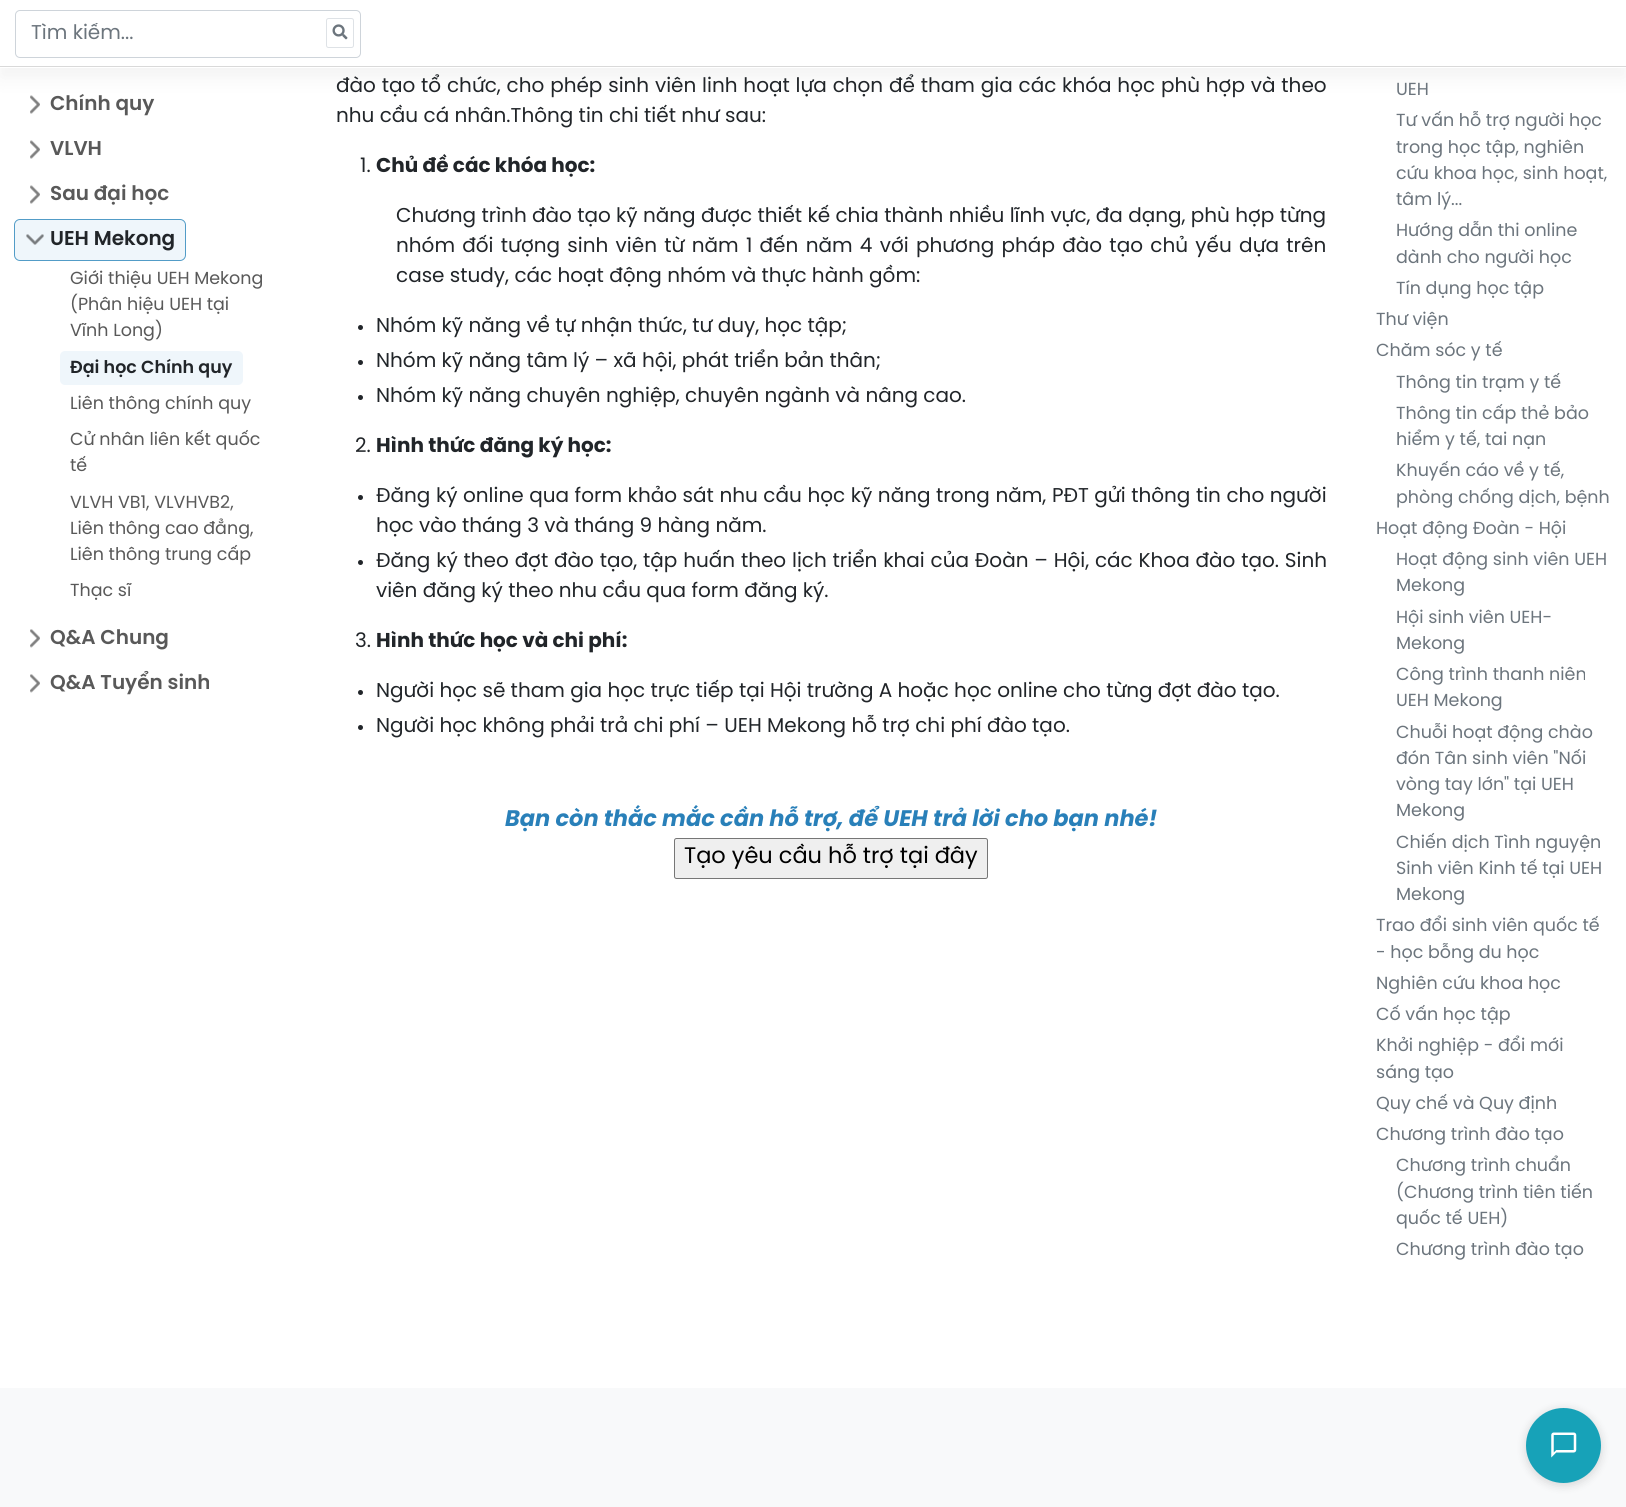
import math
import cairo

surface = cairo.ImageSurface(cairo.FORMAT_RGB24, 1626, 1507)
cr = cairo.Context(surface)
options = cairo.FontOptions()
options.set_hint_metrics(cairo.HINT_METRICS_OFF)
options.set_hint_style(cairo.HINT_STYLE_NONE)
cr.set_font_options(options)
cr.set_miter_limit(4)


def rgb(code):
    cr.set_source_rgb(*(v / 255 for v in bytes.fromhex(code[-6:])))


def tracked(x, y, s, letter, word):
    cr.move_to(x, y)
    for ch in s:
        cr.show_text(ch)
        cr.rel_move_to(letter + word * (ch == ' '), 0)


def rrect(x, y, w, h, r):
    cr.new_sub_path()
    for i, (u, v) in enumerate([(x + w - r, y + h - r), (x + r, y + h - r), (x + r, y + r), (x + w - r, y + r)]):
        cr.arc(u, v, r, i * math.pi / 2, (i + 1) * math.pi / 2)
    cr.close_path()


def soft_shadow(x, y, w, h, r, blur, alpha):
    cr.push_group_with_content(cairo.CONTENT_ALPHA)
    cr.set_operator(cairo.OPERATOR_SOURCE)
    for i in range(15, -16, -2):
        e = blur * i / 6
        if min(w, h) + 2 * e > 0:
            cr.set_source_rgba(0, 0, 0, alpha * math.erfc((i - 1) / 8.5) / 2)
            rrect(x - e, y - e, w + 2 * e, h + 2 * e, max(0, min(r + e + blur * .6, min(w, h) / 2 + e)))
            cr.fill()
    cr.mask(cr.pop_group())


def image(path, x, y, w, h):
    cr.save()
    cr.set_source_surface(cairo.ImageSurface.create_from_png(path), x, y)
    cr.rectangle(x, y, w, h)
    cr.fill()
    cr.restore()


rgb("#ffffff")
cr.paint()
image("img/2.png", 30, 95, 10, 19)
cr.save()
cr.set_fill_rule(cairo.FILL_RULE_EVEN_ODD)
cr.new_path()
cr.move_to(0, 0)
cr.line_to(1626, 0)
cr.line_to(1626, 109)
cr.line_to(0, 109)
cr.close_path()
cr.move_to(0, 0)
cr.line_to(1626, 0)
cr.line_to(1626, 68)
cr.line_to(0, 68)
cr.close_path()
cr.clip()
rgb("#000000")
soft_shadow(0, 10, 1626, 68, 0, 10, 0.05)
cr.restore()
cr.set_source_rgba(1, 1, 1, 0.95)
cr.rectangle(0, 67, 1626, 1)
cr.fill()
cr.set_source_rgba(0, 0, 0, 0.15)
cr.rectangle(0, 66, 1626, 1)
cr.fill()
rrect(15.5, 10.5, 345, 47, 4.5)
rgb("#ced4da")
cr.set_line_width(1)
cr.stroke()
rrect(326.5, 18.5, 27, 29, 2)
rgb("#dee2e6")
cr.stroke()
image("img/1.png", 332, 24, 16, 16)
image("img/2.png", 30, 140, 10, 19)
image("img/2.png", 30, 185, 10, 19)
rrect(14.5, 219.5, 171, 41, 5.5)
rgb("#529cc7")
cr.stroke()
cr.set_source_rgba(0.353, 0.655, 0.839, 0.1)
rrect(15, 220, 170, 40, 5)
cr.fill()
image("img/3.png", 26, 234, 18, 11)
rgb("#eff6fb")
rrect(60, 351, 183, 34, 5)
cr.fill()
image("img/4.png", 30, 629, 10, 19)
image("img/4.png", 30, 674, 10, 19)
rgb("#212529")
cr.arc(360.5, 327.5, 2.5, 0, 2 * math.pi)
cr.fill()
cr.arc(360.5, 362.5, 2.5, 0, 2 * math.pi)
cr.fill()
cr.arc(360.5, 397.5, 2.5, 0, 2 * math.pi)
cr.fill()
cr.arc(360.5, 497.5, 2.5, 0, 2 * math.pi)
cr.fill()
cr.arc(360.5, 562.5, 2.5, 0, 2 * math.pi)
cr.fill()
cr.arc(360.5, 692.5, 2.5, 0, 2 * math.pi)
cr.fill()
cr.arc(360.5, 727.5, 2.5, 0, 2 * math.pi)
cr.fill()
rgb("#efefef")
rrect(674.5, 838.5, 313, 40, 2)
cr.fill_preserve()
rgb("#767676")
cr.stroke()
rgb("#f8f9fa")
cr.rectangle(0, 1388, 1626, 119)
cr.fill()
rgb("#000000")
soft_shadow(1526, 1410, 75, 75, 37.5, 5, 0.15)
rgb("#17a2b8")
cr.arc(1563.5, 1445.5, 37.5, 0, 2 * math.pi)
cr.fill()
image("img/5.png", 1551, 1432, 26, 26)
cr.save()
cr.rectangle(31, 23, 235, 21)
cr.clip()
cr.select_font_face("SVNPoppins")
cr.set_font_size(20)
rgb("#6c757d")
cr.move_to(31, 39)
cr.show_text("Tìm kiếm...")
cr.restore()
cr.select_font_face("SVNPoppins SemiBold")
cr.set_font_size(20)
rgb("#595959")
for x, y, s in [
    (50, 110, "Chính quy"),
    (50, 155, "VLVH"),
    (50, 200, "Sau đại học"),
]:
    cr.move_to(x, y)
    cr.show_text(s)
rgb("#212529")
cr.move_to(50, 245)
cr.show_text("UEH Mekong")
cr.select_font_face("SVNPoppins")
cr.set_font_size(17.5)
rgb("#595959")
for x, y, s in [
    (70, 284, "Giới thiệu UEH Mekong"),
    (70, 310, "(Phân hiệu UEH tại"),
    (70, 336, "Vĩnh Long)"),
]:
    cr.move_to(x, y)
    cr.show_text(s)
cr.select_font_face("SVNPoppins SemiBold")
rgb("#212529")
cr.move_to(70, 373)
cr.show_text("Đại học Chính quy")
cr.select_font_face("SVNPoppins")
rgb("#595959")
for x, y, s in [
    (70, 409, "Liên thông chính quy"),
    (70, 445, "Cử nhân liên kết quốc"),
    (70, 471, "tế"),
    (70, 508, "VLVH VB1, VLVHVB2,"),
    (70, 534, "Liên thông cao đẳng,"),
    (70, 560, "Liên thông trung cấp"),
    (70, 596, "Thạc sĩ"),
]:
    cr.move_to(x, y)
    cr.show_text(s)
cr.select_font_face("SVNPoppins SemiBold")
cr.set_font_size(20)
cr.move_to(50, 644)
cr.show_text("Q&A Chung")
cr.move_to(50, 689)
cr.show_text("Q&A Tuyển sinh")
cr.select_font_face("SVNPoppins")
rgb("#212529")
tracked(336, 92, "đào tạo tổ chức, cho phép sinh viên linh hoạt lựa chọn để tham gia các khóa học phù hợp và theo", 0, 0.5)
cr.move_to(336, 122)
cr.show_text("nhu cầu cá nhân.Thông tin chi tiết như sau:")
cr.move_to(360, 172)
cr.show_text("1.")
cr.select_font_face("SVNPoppins", cairo.FONT_SLANT_NORMAL, cairo.FONT_WEIGHT_BOLD)
cr.move_to(376, 172)
cr.show_text("Chủ đề các khóa học:")
cr.select_font_face("SVNPoppins")
cr.move_to(396, 222)
cr.show_text("Chương trình đào tạo kỹ năng được thiết kế chia thành nhiều lĩnh vực, đa dạng, phù hợp từng")
tracked(396, 252, "nhóm đối tượng sinh viên từ năm 1 đến năm 4 với phương pháp đào tạo chủ yếu dựa trên", 0, 2)
for x, y, s in [
    (396, 282, "case study, các hoạt động nhóm và thực hành gồm:"),
    (376, 332, "Nhóm kỹ năng về tự nhận thức, tư duy, học tập;"),
    (376, 367, "Nhóm kỹ năng tâm lý – xã hội, phát triển bản thân;"),
    (376, 402, "Nhóm kỹ năng chuyên nghiệp, chuyên ngành và nâng cao."),
    (355, 452, "2."),
]:
    cr.move_to(x, y)
    cr.show_text(s)
cr.select_font_face("SVNPoppins", cairo.FONT_SLANT_NORMAL, cairo.FONT_WEIGHT_BOLD)
cr.move_to(376, 452)
cr.show_text("Hình thức đăng ký học:")
cr.select_font_face("SVNPoppins")
tracked(376, 502, "Đăng ký online qua form khảo sát nhu cầu học kỹ năng trong năm, PĐT gửi thông tin cho người", 0, 0.25)
cr.move_to(376, 532)
cr.show_text("học vào tháng 3 và tháng 9 hàng năm.")
tracked(376, 567, "Đăng ký theo đợt đào tạo, tập huấn theo lịch triển khai của Đoàn – Hội, các Khoa đào tạo. Sinh", 0, 0.5)
cr.move_to(376, 597)
cr.show_text("viên đăng ký theo nhu cầu qua form đăng ký.")
cr.move_to(355, 647)
cr.show_text("3.")
cr.select_font_face("SVNPoppins", cairo.FONT_SLANT_NORMAL, cairo.FONT_WEIGHT_BOLD)
cr.move_to(376, 647)
cr.show_text("Hình thức học và chi phí:")
cr.select_font_face("SVNPoppins")
cr.move_to(376, 697)
cr.show_text("Người học sẽ tham gia học trực tiếp tại Hội trường A hoặc học online cho từng đợt đào tạo.")
cr.move_to(376, 732)
cr.show_text("Người học không phải trả chi phí – UEH Mekong hỗ trợ chi phí đào tạo.")
cr.select_font_face("SVNPoppins", cairo.FONT_SLANT_ITALIC, cairo.FONT_WEIGHT_BOLD)
cr.set_font_size(22.5)
rgb("#2980b9")
cr.move_to(505, 826)
cr.show_text("Bạn còn thắc mắc cần hỗ trợ, để UEH trả lời cho bạn nhé!")
cr.select_font_face("SVNPoppins")
rgb("#000000")
cr.move_to(684, 863)
cr.show_text("Tạo yêu cầu hỗ trợ tại đây")
cr.set_font_size(17.5)
rgb("#6c757d")
for x, y, s in [
    (1396, 95, "UEH"),
    (1396, 126, "Tư vấn hỗ trợ người học"),
    (1396, 153, "trong học tập, nghiên"),
    (1396, 179, "cứu khoa học, sinh hoạt,"),
    (1396, 205, "tâm lý..."),
    (1396, 236, "Hướng dẫn thi online"),
    (1396, 263, "dành cho người học"),
    (1396, 294, "Tín dụng học tập"),
    (1376, 325, "Thư viện"),
    (1376, 356, "Chăm sóc y tế"),
    (1396, 388, "Thông tin trạm y tế"),
    (1396, 419, "Thông tin cấp thẻ bảo"),
    (1396, 445, "hiểm y tế, tai nạn"),
    (1396, 476, "Khuyến cáo về y tế,"),
    (1396, 503, "phòng chống dịch, bệnh"),
    (1376, 534, "Hoạt động Đoàn - Hội"),
    (1396, 565, "Hoạt động sinh viên UEH"),
    (1396, 591, "Mekong"),
    (1396, 623, "Hội sinh viên UEH-"),
    (1396, 649, "Mekong"),
    (1396, 680, "Công trình thanh niên"),
    (1396, 706, "UEH Mekong"),
    (1396, 738, "Chuỗi hoạt động chào"),
    (1396, 764, "đón Tân sinh viên \"Nối"),
    (1396, 790, "vòng tay lớn\" tại UEH"),
    (1396, 816, "Mekong"),
    (1396, 848, "Chiến dịch Tình nguyện"),
    (1396, 874, "Sinh viên Kinh tế tại UEH"),
    (1396, 900, "Mekong"),
    (1376, 931, "Trao đổi sinh viên quốc tế"),
    (1376, 958, "- học bỗng du học"),
    (1376, 989, "Nghiên cứu khoa học"),
    (1376, 1020, "Cố vấn học tập"),
    (1376, 1051, "Khởi nghiệp - đổi mới"),
    (1376, 1078, "sáng tạo"),
    (1376, 1109, "Quy chế và Quy định"),
    (1376, 1140, "Chương trình đào tạo"),
    (1396, 1171, "Chương trình chuẩn"),
    (1396, 1198, "(Chương trình tiên tiến"),
    (1396, 1224, "quốc tế UEH)"),
    (1396, 1255, "Chương trình đào tạo"),
]:
    cr.move_to(x, y)
    cr.show_text(s)
surface.write_to_png("page.png")
